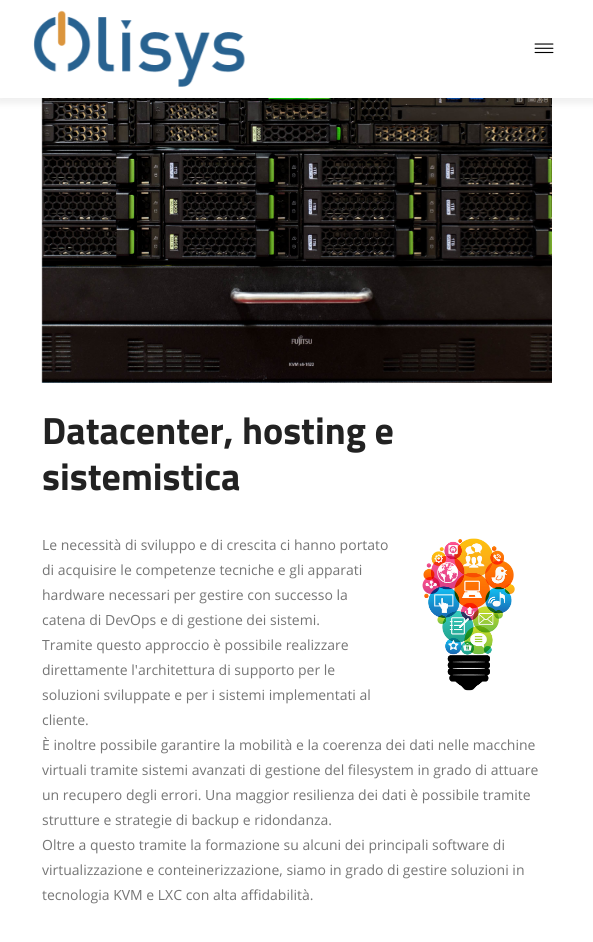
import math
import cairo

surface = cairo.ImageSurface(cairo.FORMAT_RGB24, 593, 942)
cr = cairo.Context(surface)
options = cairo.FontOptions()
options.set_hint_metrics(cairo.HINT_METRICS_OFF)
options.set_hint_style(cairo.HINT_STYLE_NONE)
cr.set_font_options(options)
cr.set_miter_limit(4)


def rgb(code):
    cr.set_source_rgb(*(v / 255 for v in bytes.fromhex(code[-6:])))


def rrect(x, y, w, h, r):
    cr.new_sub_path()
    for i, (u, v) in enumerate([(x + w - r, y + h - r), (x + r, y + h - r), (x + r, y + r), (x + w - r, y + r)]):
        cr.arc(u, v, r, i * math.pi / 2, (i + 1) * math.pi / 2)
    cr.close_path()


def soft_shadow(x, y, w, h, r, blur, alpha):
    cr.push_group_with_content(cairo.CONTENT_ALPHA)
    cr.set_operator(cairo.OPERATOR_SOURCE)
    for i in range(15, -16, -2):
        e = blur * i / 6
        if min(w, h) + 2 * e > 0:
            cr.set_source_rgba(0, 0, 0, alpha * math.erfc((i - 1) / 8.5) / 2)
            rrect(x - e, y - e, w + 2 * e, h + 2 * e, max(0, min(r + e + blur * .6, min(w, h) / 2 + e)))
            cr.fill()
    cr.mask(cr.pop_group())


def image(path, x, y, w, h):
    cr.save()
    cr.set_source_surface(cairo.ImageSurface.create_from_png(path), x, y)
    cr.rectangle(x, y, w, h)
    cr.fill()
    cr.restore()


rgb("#ffffff")
cr.paint()
image("img/3.png", 41, 98, 511, 285)
rgb("#000000")
soft_shadow(-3, 0, 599, 104, 0, 3, 0.06)
rgb("#ffffff")
cr.rectangle(0, 0, 593, 98)
cr.fill()
image("img/1.png", 33, 10, 212, 77)
image("img/2.png", 534, 43, 20, 11)
image("img/4.png", 422, 538, 93, 153)
cr.select_font_face("Titillium Web", cairo.FONT_SLANT_NORMAL, cairo.FONT_WEIGHT_BOLD)
cr.set_font_size(38)
rgb("#222222")
cr.move_to(42, 444)
cr.show_text("Datacenter, hosting e")
cr.move_to(42, 490)
cr.show_text("sistemistica")
cr.select_font_face("Open Sans")
cr.set_font_size(14)
rgb("#757575")
for x, y, s in [
    (42, 550, "Le necessità di sviluppo e di crescita ci hanno portato"),
    (42, 575, "di acquisire le competenze tecniche e gli apparati"),
    (42, 600, "hardware necessari per gestire con successo la"),
    (42, 625, "catena di DevOps e di gestione dei sistemi."),
    (42, 650, "Tramite questo approccio è possibile realizzare"),
    (42, 675, "direttamente l'architettura di supporto per le"),
    (42, 700, "soluzioni sviluppate e per i sistemi implementati al"),
    (42, 725, "cliente."),
    (42, 750, "È inoltre possibile garantire la mobilità e la coerenza dei dati nelle macchine"),
    (42, 775, "virtuali tramite sistemi avanzati di gestione del filesystem in grado di attuare"),
    (42, 800, "un recupero degli errori. Una maggior resilienza dei dati è possibile tramite"),
    (42, 825, "strutture e strategie di backup e ridondanza."),
    (42, 850, "Oltre a questo tramite la formazione su alcuni dei principali software di"),
    (42, 875, "virtualizzazione e conteinerizzazione, siamo in grado di gestire soluzioni in"),
    (42, 900, "tecnologia KVM e LXC con alta affidabilità."),
]:
    cr.move_to(x, y)
    cr.show_text(s)
surface.write_to_png("page.png")
